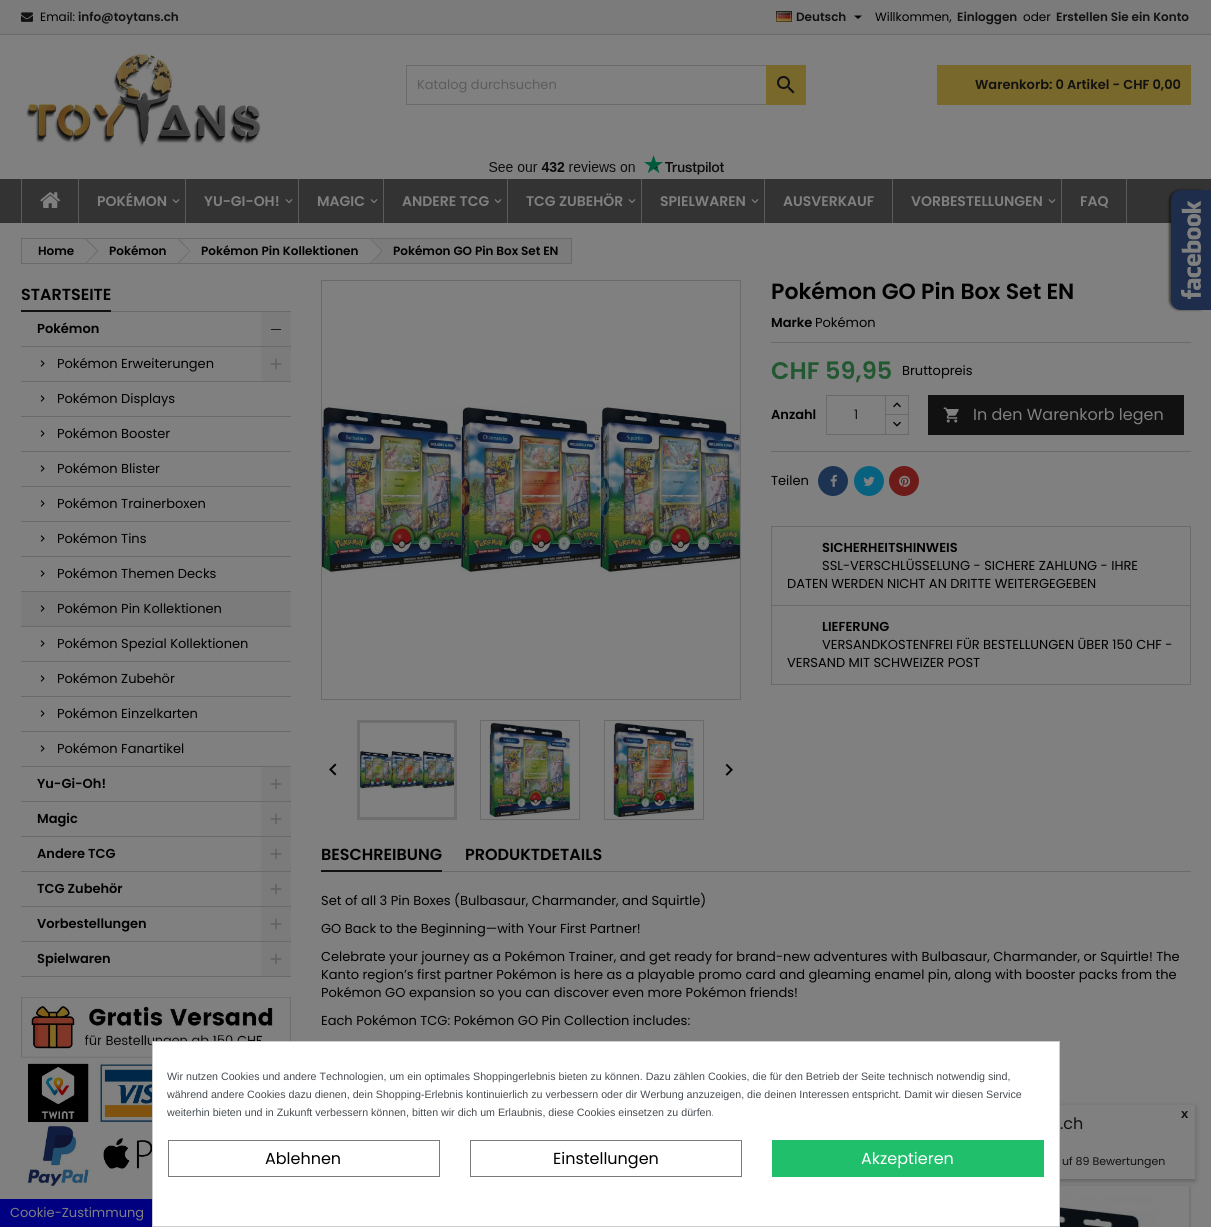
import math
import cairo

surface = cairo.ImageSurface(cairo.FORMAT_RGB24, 1211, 1227)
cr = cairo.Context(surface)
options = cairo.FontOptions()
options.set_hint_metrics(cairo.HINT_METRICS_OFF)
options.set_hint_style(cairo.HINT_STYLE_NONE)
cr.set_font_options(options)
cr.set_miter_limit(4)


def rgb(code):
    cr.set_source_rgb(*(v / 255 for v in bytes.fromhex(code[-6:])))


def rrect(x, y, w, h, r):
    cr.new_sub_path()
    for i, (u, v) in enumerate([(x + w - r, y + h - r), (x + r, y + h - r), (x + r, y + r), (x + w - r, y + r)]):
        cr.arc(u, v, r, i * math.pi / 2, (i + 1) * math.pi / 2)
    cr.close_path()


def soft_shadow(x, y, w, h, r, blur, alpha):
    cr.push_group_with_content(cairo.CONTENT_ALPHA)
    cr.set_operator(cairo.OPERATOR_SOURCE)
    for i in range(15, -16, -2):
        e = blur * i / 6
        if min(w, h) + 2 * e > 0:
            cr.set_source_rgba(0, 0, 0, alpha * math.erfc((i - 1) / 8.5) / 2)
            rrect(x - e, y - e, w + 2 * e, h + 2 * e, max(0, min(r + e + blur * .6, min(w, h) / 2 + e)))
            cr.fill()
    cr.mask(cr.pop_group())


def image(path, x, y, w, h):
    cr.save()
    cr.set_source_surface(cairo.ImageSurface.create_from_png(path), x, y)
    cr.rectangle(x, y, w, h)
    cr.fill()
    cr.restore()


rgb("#808080")
cr.paint()
rgb("#7b7b7b")
cr.rectangle(0, 0, 1211, 34)
cr.fill()
rgb("#6b6a6a")
cr.rectangle(0, 34, 1211, 1)
cr.fill()
image("img/1.png", 21, 12, 12, 10)
image("img/2.png", 776, 11, 16, 11)
rgb("#000000")
cr.new_path()
cr.move_to(854, 15.5)
cr.line_to(862, 15.5)
cr.line_to(858, 19)
cr.close_path()
cr.fill()
image("img/3.png", 26, 54, 235, 93)
cr.rectangle(406.5, 65.5, 399, 39)
rgb("#6b6a6a")
cr.set_line_width(1)
cr.stroke()
rgb("#79682b")
cr.rectangle(766, 65, 40, 40)
cr.fill()
image("img/4.png", 777, 76, 18, 18)
cr.rectangle(937, 65, 254, 40)
cr.fill()
image("img/5.png", 489, 155, 235, 20)
rgb("#333333")
cr.rectangle(0, 179, 1211, 44)
cr.fill()
rgb("#5b5b5b")
cr.rectangle(21, 179, 1, 44)
cr.fill()
image("img/6.png", 40, 192, 21, 16)
cr.rectangle(78, 179, 1, 44)
cr.fill()
image("img/7.png", 172, 199, 8, 5)
cr.rectangle(185, 179, 1, 44)
cr.fill()
image("img/7.png", 285, 199, 8, 5)
cr.rectangle(298, 179, 1, 44)
cr.fill()
image("img/7.png", 370, 199, 8, 5)
cr.rectangle(383, 179, 1, 44)
cr.fill()
image("img/7.png", 494, 199, 8, 5)
cr.rectangle(507, 179, 1, 44)
cr.fill()
image("img/7.png", 628, 199, 8, 5)
cr.rectangle(641, 179, 1, 44)
cr.fill()
image("img/7.png", 751, 199, 8, 5)
cr.rectangle(764, 179, 1, 44)
cr.fill()
cr.rectangle(892, 179, 1, 44)
cr.fill()
image("img/7.png", 1048, 199, 8, 5)
cr.rectangle(1126, 179, 1, 44)
cr.fill()
cr.rectangle(1061, 179, 1, 44)
cr.fill()
cr.rectangle(21.5, 238.5, 550, 25)
rgb("#6b6a6a")
cr.stroke()
cr.new_path()
cr.move_to(179, 239)
cr.line_to(190, 250.5)
cr.line_to(189.5, 251)
cr.line_to(178, 239.5)
cr.close_path()
cr.move_to(189.5, 251)
cr.line_to(190, 251.5)
cr.line_to(179, 263)
cr.line_to(178, 262.5)
cr.close_path()
cr.fill()
rgb("#7b7b7b")
cr.rectangle(371, 239, 200, 24)
cr.fill()
rgb("#808080")
cr.new_path()
cr.move_to(372, 239.5)
cr.line_to(381.5, 249.5)
cr.curve_to(382.5, 250.5, 382.5, 251.5, 381.5, 252.5)
cr.line_to(372, 262.5)
cr.curve_to(371, 263, 370, 263, 369, 262.5)
cr.line_to(359, 252.5)
cr.curve_to(358.5, 251.5, 358.5, 250.5, 359, 249.5)
cr.line_to(369, 239.5)
cr.curve_to(370, 239, 371, 239, 372, 239.5)
cr.close_path()
cr.fill()
rgb("#6b6a6a")
cr.new_path()
cr.move_to(371, 239)
cr.line_to(382.5, 250.5)
cr.line_to(381.5, 251)
cr.line_to(370.5, 239.5)
cr.close_path()
cr.move_to(381.5, 251)
cr.line_to(382.5, 251.5)
cr.line_to(371, 263)
cr.line_to(370.5, 262.5)
cr.close_path()
cr.fill()
for x, y, w, h, color in [
    (111, 311, 180, 1, "#6b6a6a"),
    (21, 310, 90, 2, "#111111"),
    (21, 346, 270, 1, "#6b6a6a"),
    (261, 312, 30, 34, "#7b7b7b"),
    (271, 329, 10, 1, "#1a1a1a"),
    (21, 381, 270, 1, "#6b6a6a"),
]:
    rgb(color)
    cr.rectangle(x, y, w, h)
    cr.fill()
image("img/8.png", 40, 360, 5, 7)
rgb("#7b7b7b")
cr.rectangle(261, 347, 30, 34)
cr.fill()
image("img/9.png", 270, 358, 12, 12)
rgb("#6b6a6a")
cr.rectangle(21, 416, 270, 1)
cr.fill()
image("img/8.png", 40, 395, 5, 7)
cr.rectangle(21, 451, 270, 1)
cr.fill()
image("img/8.png", 40, 430, 5, 7)
cr.rectangle(21, 486, 270, 1)
cr.fill()
image("img/8.png", 40, 465, 5, 7)
cr.rectangle(21, 521, 270, 1)
cr.fill()
image("img/8.png", 40, 500, 5, 7)
cr.rectangle(21, 556, 270, 1)
cr.fill()
image("img/8.png", 40, 535, 5, 7)
cr.rectangle(21, 591, 270, 1)
cr.fill()
image("img/8.png", 40, 570, 5, 7)
rgb("#7b7b7b")
cr.rectangle(21, 592, 270, 34)
cr.fill()
rgb("#6b6a6a")
cr.rectangle(21, 626, 270, 1)
cr.fill()
image("img/10.png", 40, 605, 5, 7)
cr.rectangle(21, 661, 270, 1)
cr.fill()
image("img/8.png", 40, 640, 5, 7)
cr.rectangle(21, 696, 270, 1)
cr.fill()
image("img/8.png", 40, 675, 5, 7)
cr.rectangle(21, 731, 270, 1)
cr.fill()
image("img/8.png", 40, 710, 5, 7)
cr.rectangle(21, 766, 270, 1)
cr.fill()
image("img/8.png", 40, 745, 5, 7)
cr.rectangle(21, 801, 270, 1)
cr.fill()
rgb("#7b7b7b")
cr.rectangle(261, 767, 30, 34)
cr.fill()
image("img/9.png", 270, 778, 12, 12)
rgb("#6b6a6a")
cr.rectangle(21, 836, 270, 1)
cr.fill()
rgb("#7b7b7b")
cr.rectangle(261, 802, 30, 34)
cr.fill()
image("img/9.png", 270, 813, 12, 12)
rgb("#6b6a6a")
cr.rectangle(21, 871, 270, 1)
cr.fill()
rgb("#7b7b7b")
cr.rectangle(261, 837, 30, 34)
cr.fill()
image("img/9.png", 270, 848, 12, 12)
rgb("#6b6a6a")
cr.rectangle(21, 906, 270, 1)
cr.fill()
rgb("#7b7b7b")
cr.rectangle(261, 872, 30, 34)
cr.fill()
image("img/9.png", 270, 883, 12, 12)
rgb("#6b6a6a")
cr.rectangle(21, 941, 270, 1)
cr.fill()
rgb("#7b7b7b")
cr.rectangle(261, 907, 30, 34)
cr.fill()
image("img/9.png", 270, 918, 12, 12)
rgb("#6b6a6a")
cr.rectangle(21, 976, 270, 1)
cr.fill()
rgb("#7b7b7b")
cr.rectangle(261, 942, 30, 34)
cr.fill()
image("img/9.png", 270, 953, 12, 12)
image("img/11.png", 21, 997, 270, 190)
cr.rectangle(321.5, 280.5, 419, 419)
rgb("#6b6a6a")
cr.stroke()
image("img/12.png", 322, 406, 418, 168)
cr.rectangle(358.5, 721.5, 97, 97)
rgb("#6e6e6e")
cr.set_line_width(3)
cr.stroke()
cr.rectangle(480.5, 720.5, 99, 99)
rgb("#6b6a6a")
cr.set_line_width(1)
cr.stroke()
cr.rectangle(604.5, 720.5, 99, 99)
cr.stroke()
image("img/13.png", 360, 751, 94, 40)
image("img/14.png", 489, 723, 82, 94)
image("img/15.png", 613, 723, 82, 94)
image("img/16.png", 329, 763, 8, 13)
image("img/17.png", 725, 763, 8, 13)
cr.rectangle(771, 342, 420, 1)
cr.fill()
cr.rectangle(885.5, 395.5, 23, 20)
cr.stroke()
rgb("#808080")
cr.rectangle(886, 415, 22, 1)
cr.fill()
cr.rectangle(885.5, 414.5, 23, 20)
rgb("#6b6a6a")
cr.stroke()
cr.rectangle(826.5, 395.5, 59, 39)
cr.stroke()
image("img/18.png", 893, 402, 8, 6)
image("img/19.png", 893, 421, 8, 6)
rgb("#111111")
cr.rectangle(928, 395, 256, 40)
cr.fill()
image("img/20.png", 943, 407, 16, 16)
rgb("#6b6a6a")
cr.rectangle(771, 451, 420, 1)
cr.fill()
rgb("#1c3352")
cr.arc(833, 481, 15, 0, 2 * math.pi)
cr.fill()
image("img/21.png", 830, 474, 7, 13)
rgb("#096180")
cr.arc(869, 481, 15, 0, 2 * math.pi)
cr.fill()
image("img/22.png", 863, 476, 12, 10)
rgb("#6c1b19")
cr.arc(904, 481, 15, 0, 2 * math.pi)
cr.fill()
image("img/23.png", 899, 475, 12, 12)
cr.rectangle(771.5, 526.5, 419, 158)
rgb("#6b6a6a")
cr.stroke()
for x, y, w, h, color in [
    (772, 605, 418, 1, "#6b6a6a"),
    (442, 871, 749, 1, "#6b6a6a"),
    (321, 870, 121, 2, "#111111"),
]:
    rgb(color)
    cr.rectangle(x, y, w, h)
    cr.fill()
cr.save()
cr.set_fill_rule(cairo.FILL_RULE_EVEN_ODD)
cr.new_path()
cr.move_to(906, 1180)
cr.line_to(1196, 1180)
cr.line_to(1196, 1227)
cr.line_to(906, 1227)
cr.close_path()
cr.move_to(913, 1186)
cr.line_to(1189, 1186)
cr.line_to(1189, 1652)
cr.line_to(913, 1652)
cr.close_path()
cr.clip()
rgb("#000000")
soft_shadow(913, 1187, 276, 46, 0, 2, 0.24)
cr.restore()
image("img/24.png", 1060, 1195, 101, 32)
rgb("#000000")
soft_shadow(1169, 190, 40, 120, 10, 1, 0.5)
rgb("#1e2d4c")
cr.new_path()
cr.move_to(1181, 190)
cr.line_to(1211, 190)
cr.line_to(1211, 310)
cr.line_to(1181, 310)
cr.curve_to(1175.5, 310, 1171, 305.5, 1171, 300)
cr.line_to(1171, 200)
cr.curve_to(1171, 194.5, 1175.5, 190, 1181, 190)
cr.close_path()
cr.fill()
image("img/25.png", 1181, 201, 20, 98)
rgb("#000000")
soft_shadow(914, 1107, 281, 74, 0, 2.5, 0.26)
rgb("#ffffff")
cr.rectangle(152.5, 1041.5, 907, 185)
cr.fill_preserve()
rgb("#cccccc")
cr.stroke()
cr.rectangle(168.5, 1140.5, 271, 36)
rgb("#7a7a7a")
cr.stroke()
cr.rectangle(470.5, 1140.5, 271, 36)
cr.stroke()
for x, y, w, h, color in [
    (772, 1140, 272, 37, "#20bf6b"),
    (1060, 1105, 135, 74, "#808080"),
    (0, 1199, 152, 28, "#000080"),
]:
    rgb(color)
    cr.rectangle(x, y, w, h)
    cr.fill()
cr.select_font_face("Poppins")
cr.set_font_size(12)
rgb("#000000")
cr.move_to(40, 21)
cr.show_text("Email:")
cr.select_font_face("Poppins SemiBold")
rgb("#111111")
cr.move_to(78, 21)
cr.show_text("info@toytans.ch")
cr.move_to(796, 21)
cr.show_text("Deutsch")
cr.select_font_face("Poppins")
rgb("#000000")
cr.move_to(875, 21)
cr.show_text("Willkommen,")
cr.select_font_face("Poppins SemiBold")
rgb("#111111")
cr.move_to(957, 21)
cr.show_text("Einloggen")
cr.select_font_face("Poppins")
rgb("#000000")
cr.move_to(1023, 21)
cr.show_text("oder")
cr.select_font_face("Poppins SemiBold")
rgb("#111111")
cr.move_to(1056, 21)
cr.show_text("Erstellen Sie ein Konto")
cr.select_font_face("Poppins")
cr.set_font_size(13)
rgb("#5c5c5c")
cr.move_to(417, 89)
cr.show_text("Katalog durchsuchen")
cr.select_font_face("Poppins SemiBold")
rgb("#111111")
cr.move_to(975, 89)
cr.show_text("Warenkorb: 0 Artikel - CHF 0,00")
cr.set_font_size(14)
rgb("#808080")
for x, y, s in [
    (97, 206, "POKÉMON"),
    (204, 206, "YU-GI-OH!"),
    (317, 206, "MAGIC"),
    (402, 206, "ANDERE TCG"),
    (526, 206, "TCG ZUBEHÖR"),
    (660, 206, "SPIELWAREN"),
    (783, 206, "AUSVERKAUF"),
    (911, 206, "VORBESTELLUNGEN"),
    (1080, 206, "FAQ"),
]:
    cr.move_to(x, y)
    cr.show_text(s)
cr.set_font_size(12)
rgb("#000000")
cr.move_to(38, 255)
cr.show_text("Home")
rgb("#808080")
cr.new_path()
cr.move_to(87, 239.5)
cr.line_to(97, 249.5)
cr.curve_to(98, 250.5, 98, 251.5, 97, 252.5)
cr.line_to(87, 262.5)
cr.curve_to(86.5, 263, 85, 263, 84.5, 262.5)
cr.line_to(74.5, 252.5)
cr.curve_to(73.5, 251.5, 73.5, 250.5, 74.5, 249.5)
cr.line_to(84.5, 239.5)
cr.curve_to(85, 239, 86.5, 239, 87, 239.5)
cr.close_path()
cr.fill()
rgb("#6b6a6a")
cr.new_path()
cr.move_to(86.5, 239)
cr.line_to(98, 250.5)
cr.line_to(97, 251)
cr.line_to(85.5, 239.5)
cr.close_path()
cr.move_to(97, 251)
cr.line_to(98, 251.5)
cr.line_to(86.5, 263)
cr.line_to(86, 262.5)
cr.close_path()
cr.fill()
rgb("#000000")
for x, y, s in [
    (109, 255, "Pokémon"),
    (201, 255, "Pokémon Pin Kollektionen"),
    (393, 255, "Pokémon GO Pin Box Set EN"),
]:
    cr.move_to(x, y)
    cr.show_text(s)
cr.set_font_size(16)
cr.move_to(21, 300)
cr.show_text("STARTSEITE")
cr.set_font_size(13)
cr.move_to(37, 333)
cr.show_text("Pokémon")
cr.select_font_face("Poppins")
for x, y, s in [
    (57, 368, "Pokémon Erweiterungen"),
    (57, 403, "Pokémon Displays"),
    (57, 438, "Pokémon Booster"),
    (57, 473, "Pokémon Blister"),
    (57, 508, "Pokémon Trainerboxen"),
    (57, 543, "Pokémon Tins"),
    (57, 578, "Pokémon Themen Decks"),
    (57, 613, "Pokémon Pin Kollektionen"),
    (57, 648, "Pokémon Spezial Kollektionen"),
    (57, 683, "Pokémon Zubehör"),
    (57, 718, "Pokémon Einzelkarten"),
    (57, 753, "Pokémon Fanartikel"),
]:
    cr.move_to(x, y)
    cr.show_text(s)
cr.select_font_face("Poppins SemiBold")
for x, y, s in [
    (37, 788, "Yu-Gi-Oh!"),
    (37, 823, "Magic"),
    (37, 858, "Andere TCG"),
    (37, 893, "TCG Zubehör"),
    (37, 928, "Vorbestellungen"),
    (37, 963, "Spielwaren"),
]:
    cr.move_to(x, y)
    cr.show_text(s)
cr.set_font_size(22)
cr.move_to(771, 299)
cr.show_text("Pokémon GO Pin Box Set EN")
cr.set_font_size(13)
cr.move_to(771, 327)
cr.show_text("Marke")
cr.select_font_face("Poppins")
cr.move_to(815, 327)
cr.show_text("Pokémon")
cr.select_font_face("Poppins SemiBold")
cr.set_font_size(24)
rgb("#225831")
cr.move_to(771, 379)
cr.show_text("CHF 59,95")
cr.select_font_face("Poppins")
cr.set_font_size(13)
rgb("#000000")
cr.move_to(902, 375)
cr.show_text("Bruttopreis")
cr.select_font_face("Poppins SemiBold")
cr.move_to(771, 419)
cr.show_text("Anzahl")
cr.select_font_face("Poppins")
rgb("#111111")
cr.move_to(854, 419)
cr.show_text("1")
cr.set_font_size(16)
rgb("#808080")
cr.move_to(973, 420)
cr.show_text("In den Warenkorb legen")
cr.set_font_size(13)
rgb("#000000")
cr.move_to(771, 485)
cr.show_text("Teilen")
cr.select_font_face("Poppins SemiBold")
cr.move_to(822, 552)
cr.show_text("SICHERHEITSHINWEIS")
cr.select_font_face("Poppins")
cr.move_to(822, 570)
cr.show_text("SSL-VERSCHLÜSSELUNG - SICHERE ZAHLUNG - IHRE")
cr.move_to(787, 588)
cr.show_text("DATEN WERDEN NICHT AN DRITTE WEITERGEGEBEN")
cr.select_font_face("Poppins SemiBold")
cr.move_to(822, 631)
cr.show_text("LIEFERUNG")
cr.select_font_face("Poppins")
cr.move_to(822, 649)
cr.show_text("VERSANDKOSTENFREI FÜR BESTELLUNGEN ÜBER 150 CHF -")
cr.move_to(787, 667)
cr.show_text("VERSAND MIT SCHWEIZER POST")
cr.select_font_face("Poppins SemiBold")
cr.set_font_size(16)
cr.move_to(321, 860)
cr.show_text("BESCHREIBUNG")
cr.move_to(465, 860)
cr.show_text("PRODUKTDETAILS")
cr.select_font_face("Poppins")
cr.set_font_size(13)
for x, y, s in [
    (321, 905, "Set of all 3 Pin Boxes (Bulbasaur, Charmander, and Squirtle)"),
    (321, 933, "GO Back to the Beginning—with Your First Partner!"),
    (321, 961, "Celebrate your journey as a Pokémon Trainer, and get ready for brand-new adventures with Bulbasaur, Charmander, or Squirtle! The"),
    (321, 979, "Kanto region’s first partner Pokémon is here as a playable promo card and gleaming enamel pin, along with booster packs from the"),
    (321, 997, "Pokémon GO expansion so you can discover even more Pokémon friends!"),
    (321, 1025, "Each Pokémon TCG: Pokémon GO Pin Collection includes:"),
]:
    cr.move_to(x, y)
    cr.show_text(s)
cr.select_font_face("Liberation Sans")
cr.set_font_size(10.67)
rgb("#464b50")
for x, y, s in [
    (167, 1080, "Wir nutzen Cookies und andere Technologien, um ein optimales Shoppingerlebnis bieten zu können. Dazu zählen Cookies, die für den Betrieb der Seite technisch notwendig sind,"),
    (167, 1098, "während andere Cookies dazu dienen, dein Shopping-Erlebnis kontinuierlich zu verbessern oder dir Werbung anzuzeigen, die deinen Interessen entspricht. Damit wir diesen Service"),
    (167, 1116, "weiterhin bieten und in Zukunft verbessern können, bitten wir dich um Erlaubnis, diese Cookies einsetzen zu dürfen."),
]:
    cr.move_to(x, y)
    cr.show_text(s)
cr.select_font_face("Poppins")
cr.set_font_size(16)
rgb("#000000")
cr.move_to(265, 1164)
cr.show_text("Ablehnen")
cr.move_to(553, 1164)
cr.show_text("Einstellungen")
rgb("#ffffff")
cr.move_to(861, 1164)
cr.show_text("Akzeptieren")
cr.select_font_face("Liberation Sans", cairo.FONT_SLANT_NORMAL, cairo.FONT_WEIGHT_BOLD)
cr.set_font_size(13)
rgb("#111111")
cr.move_to(1181, 1118)
cr.show_text("x")
cr.select_font_face("Poppins")
cr.set_font_size(16)
cr.move_to(1060, 1129)
cr.show_text(".ch")
cr.set_font_size(11)
cr.move_to(1062, 1165)
cr.show_text("uf 89 Bewertungen")
cr.set_font_size(13)
rgb("#808080")
cr.move_to(10, 1217)
cr.show_text("Cookie-Zustimmung")
surface.write_to_png("page.png")
